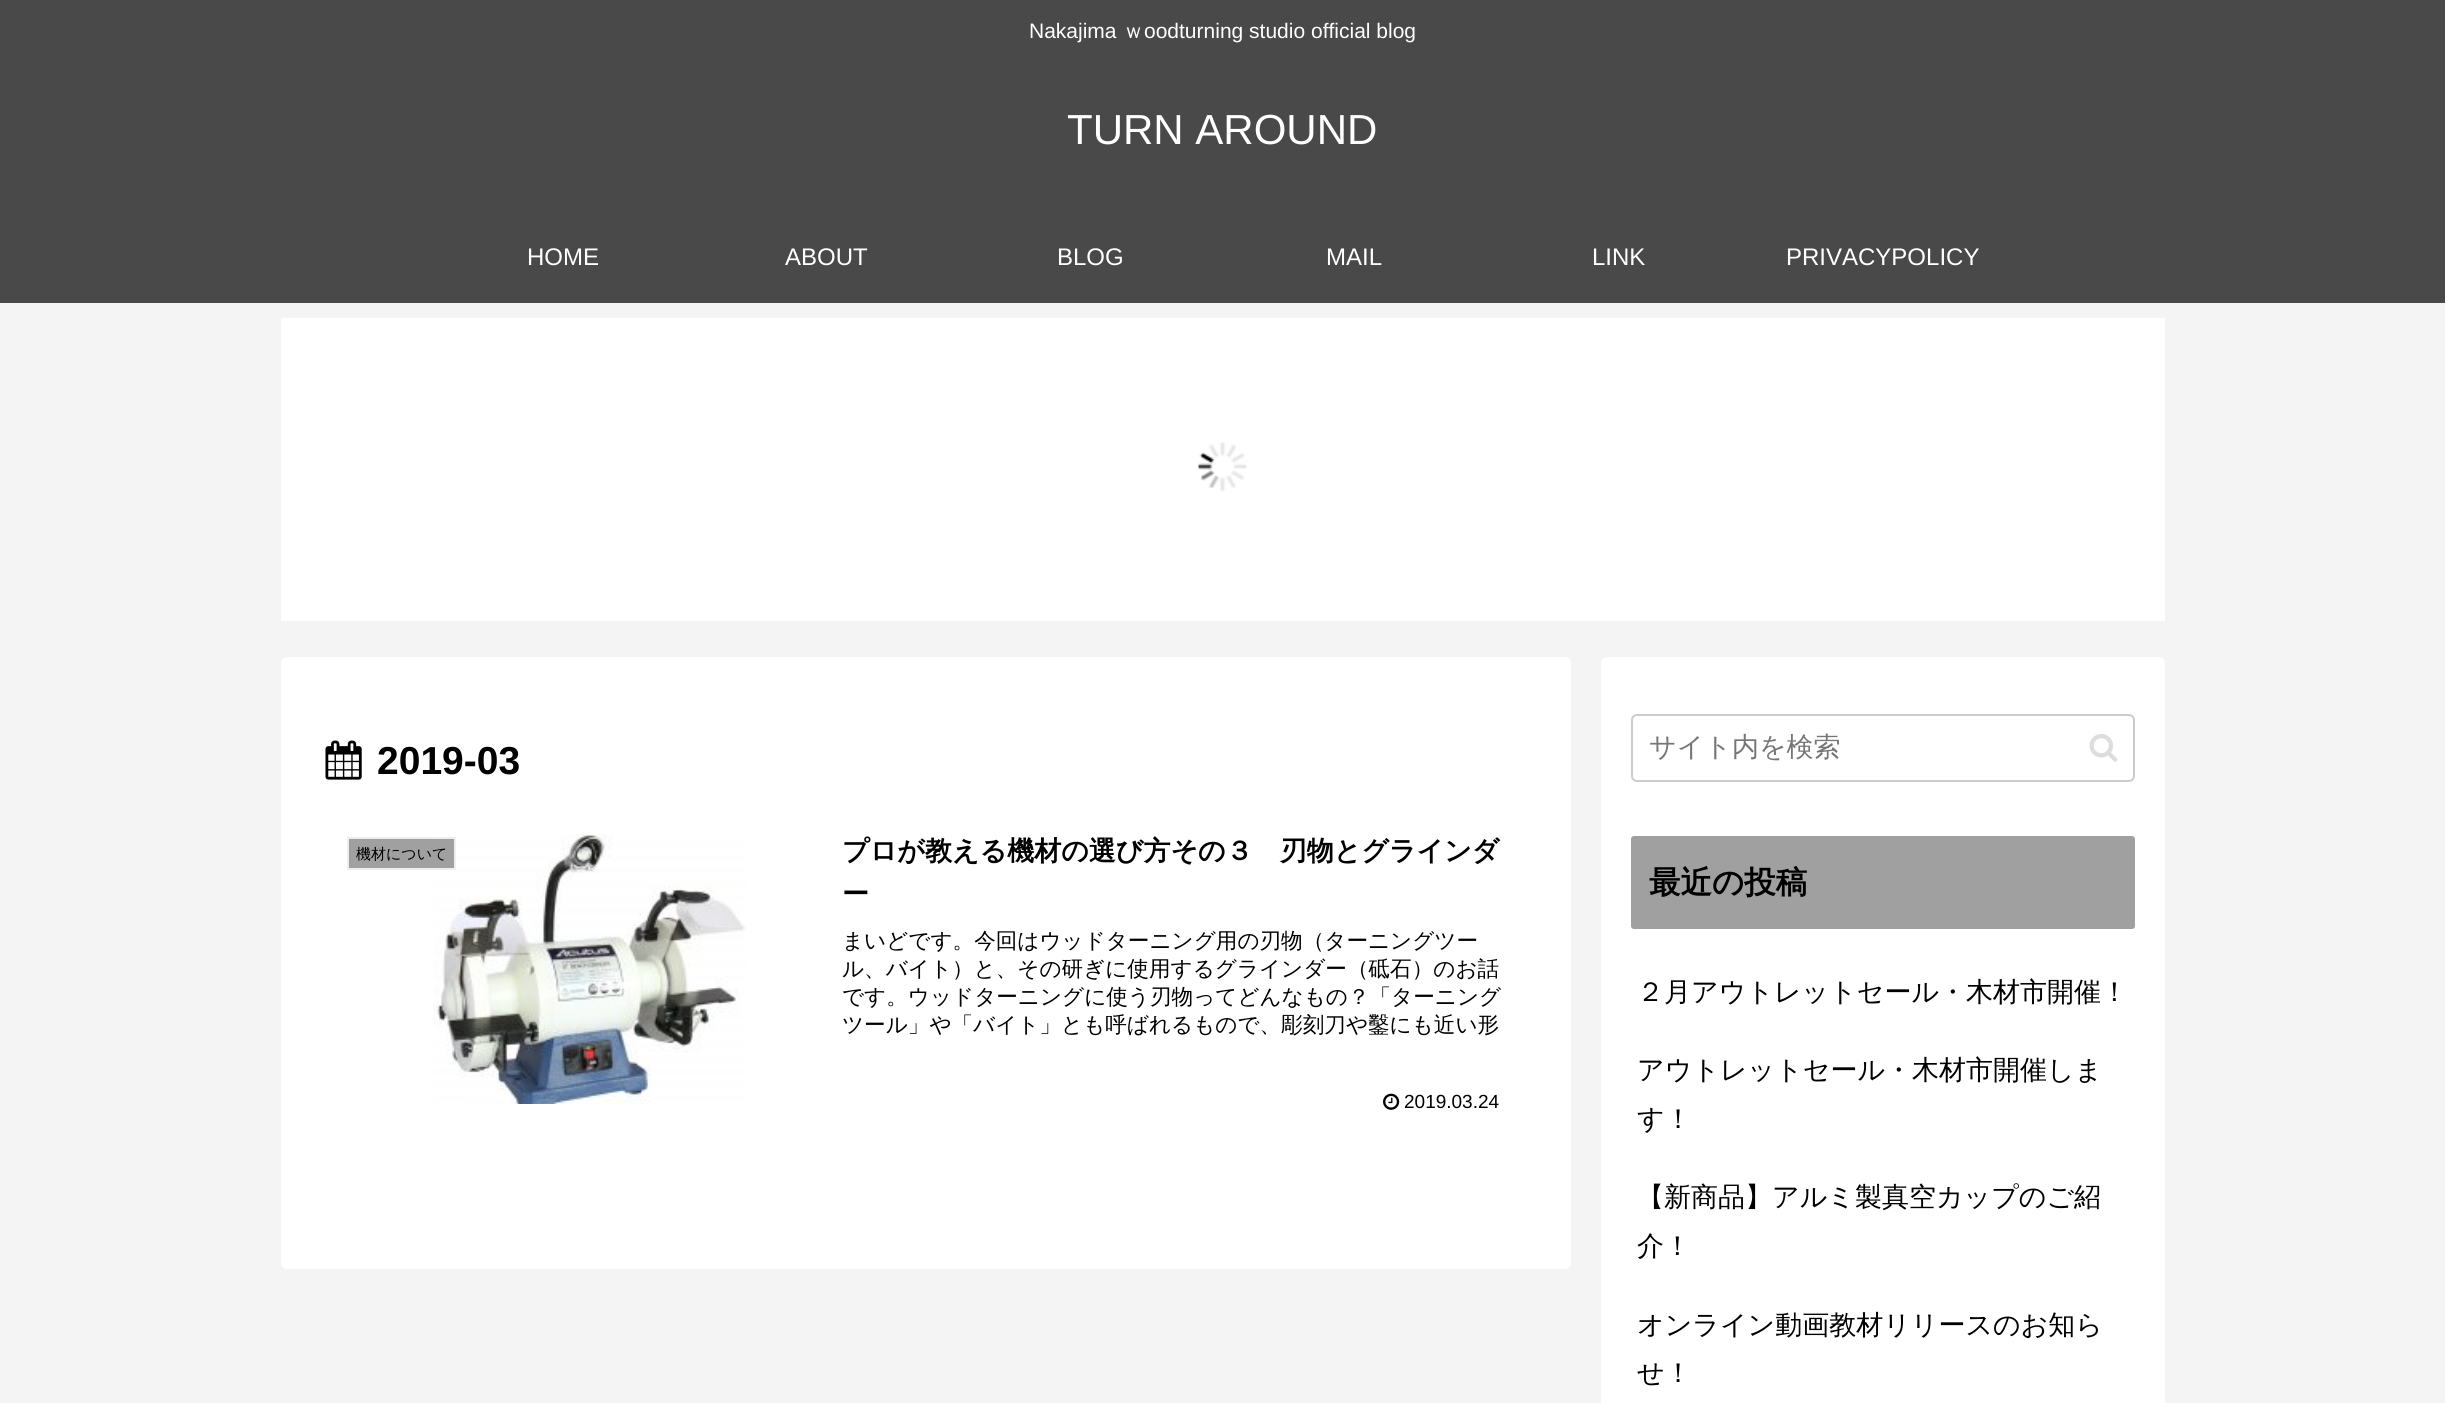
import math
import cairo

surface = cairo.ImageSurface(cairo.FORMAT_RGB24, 2445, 1403)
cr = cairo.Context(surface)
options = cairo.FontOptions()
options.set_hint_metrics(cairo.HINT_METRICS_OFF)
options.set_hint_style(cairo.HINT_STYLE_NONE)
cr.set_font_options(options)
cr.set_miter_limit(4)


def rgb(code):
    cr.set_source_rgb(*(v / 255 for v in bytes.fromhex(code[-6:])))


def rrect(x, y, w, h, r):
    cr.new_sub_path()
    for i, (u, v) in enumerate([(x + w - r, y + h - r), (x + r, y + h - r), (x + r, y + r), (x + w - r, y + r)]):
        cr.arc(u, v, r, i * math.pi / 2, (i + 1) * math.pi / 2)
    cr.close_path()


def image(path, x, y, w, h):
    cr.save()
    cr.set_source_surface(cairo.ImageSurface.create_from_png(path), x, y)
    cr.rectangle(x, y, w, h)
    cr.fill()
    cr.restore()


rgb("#f4f4f4")
cr.paint()
rgb("#494949")
cr.rectangle(0, 0, 2445, 303)
cr.fill()
rgb("#ffffff")
cr.rectangle(281, 318, 1884, 303)
cr.fill()
image("img/1.png", 1198, 442, 49, 49)
rrect(281, 657, 1290, 612, 6)
cr.fill()
image("img/2.png", 325, 740, 37, 40)
image("img/3.png", 433, 834, 313, 270)
rgb("#a0a0a0")
cr.rectangle(348, 838, 107, 31)
cr.fill_preserve()
rgb("#eeeeee")
cr.stroke()
image("img/4.png", 1383, 1093, 17, 17)
rgb("#ffffff")
rrect(1601, 657, 564, 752, 6)
cr.fill()
rrect(1632, 715, 502, 66, 5)
rgb("#cccccc")
cr.stroke()
image("img/5.png", 2089, 734, 29, 28)
rgb("#a0a0a0")
rrect(1631, 836, 504, 93, 3)
cr.fill()
cr.select_font_face("Liberation Sans")
cr.set_font_size(21)
rgb("#ffffff")
cr.move_to(1029, 38)
cr.show_text("Nakajima")
cr.select_font_face("WenQuanYi Zen Hei Medium")
cr.move_to(1123, 38)
cr.show_text("ｗ")
cr.select_font_face("Liberation Sans")
cr.move_to(1144, 38)
cr.show_text("oodturning studio official blog")
cr.set_font_size(42)
cr.move_to(1067, 144)
cr.show_text("TURN AROUND")
cr.set_font_size(24)
for x, y, s in [
    (527, 265, "HOME"),
    (785, 265, "ABOUT"),
    (1057, 265, "BLOG"),
    (1326, 265, "MAIL"),
    (1592, 265, "LINK"),
    (1786, 265, "PRIVACYPOLICY"),
]:
    cr.move_to(x, y)
    cr.show_text(s)
cr.select_font_face("Liberation Sans", cairo.FONT_SLANT_NORMAL, cairo.FONT_WEIGHT_BOLD)
cr.set_font_size(39)
rgb("#000000")
cr.move_to(377, 774)
cr.show_text("2019-03")
cr.select_font_face("WenQuanYi Zen Hei Medium")
cr.set_font_size(15)
cr.move_to(356, 859)
cr.show_text("機材について")
cr.select_font_face("WenQuanYi Zen Hei", cairo.FONT_SLANT_NORMAL, cairo.FONT_WEIGHT_BOLD)
cr.set_font_size(27)
cr.move_to(842, 860)
cr.show_text("プロが教える機材の選び方その３　刃物とグラインダ")
cr.move_to(842, 903)
cr.show_text("ー")
cr.select_font_face("WenQuanYi Zen Hei Medium")
cr.set_font_size(21.6)
for x, y, s in [
    (842, 948, "まいどです。今回はウッドターニング用の刃物（ターニングツー"),
    (842, 976, "ル、バイト）と、その研ぎに使用するグラインダー（砥石）のお話"),
    (842, 1004, "です。ウッドターニングに使う刃物ってどんなもの？「ターニング"),
    (842, 1032, "ツール」や「バイト」とも呼ばれるもので、彫刻刀や鑿にも近い形"),
]:
    cr.move_to(x, y)
    cr.show_text(s)
cr.select_font_face("Liberation Sans")
cr.set_font_size(19)
cr.move_to(1404, 1108)
cr.show_text("2019.03.24")
cr.select_font_face("WenQuanYi Zen Hei Medium")
cr.set_font_size(27)
rgb("#757575")
cr.move_to(1649, 756)
cr.show_text("サイト内を検索")
cr.select_font_face("WenQuanYi Zen Hei", cairo.FONT_SLANT_NORMAL, cairo.FONT_WEIGHT_BOLD)
cr.set_font_size(31.5)
rgb("#000000")
cr.move_to(1649, 893)
cr.show_text("最近の投稿")
cr.select_font_face("WenQuanYi Zen Hei Medium")
cr.set_font_size(27)
for x, y, s in [
    (1637, 1001, "２月アウトレットセール・木材市開催！"),
    (1637, 1079, "アウトレットセール・木材市開催しま"),
    (1637, 1128, "す！"),
    (1637, 1206, "【新商品】アルミ製真空カップのご紹"),
    (1637, 1255, "介！"),
    (1637, 1334, "オンライン動画教材リリースのお知ら"),
    (1637, 1382, "せ！"),
]:
    cr.move_to(x, y)
    cr.show_text(s)
surface.write_to_png("page.png")
